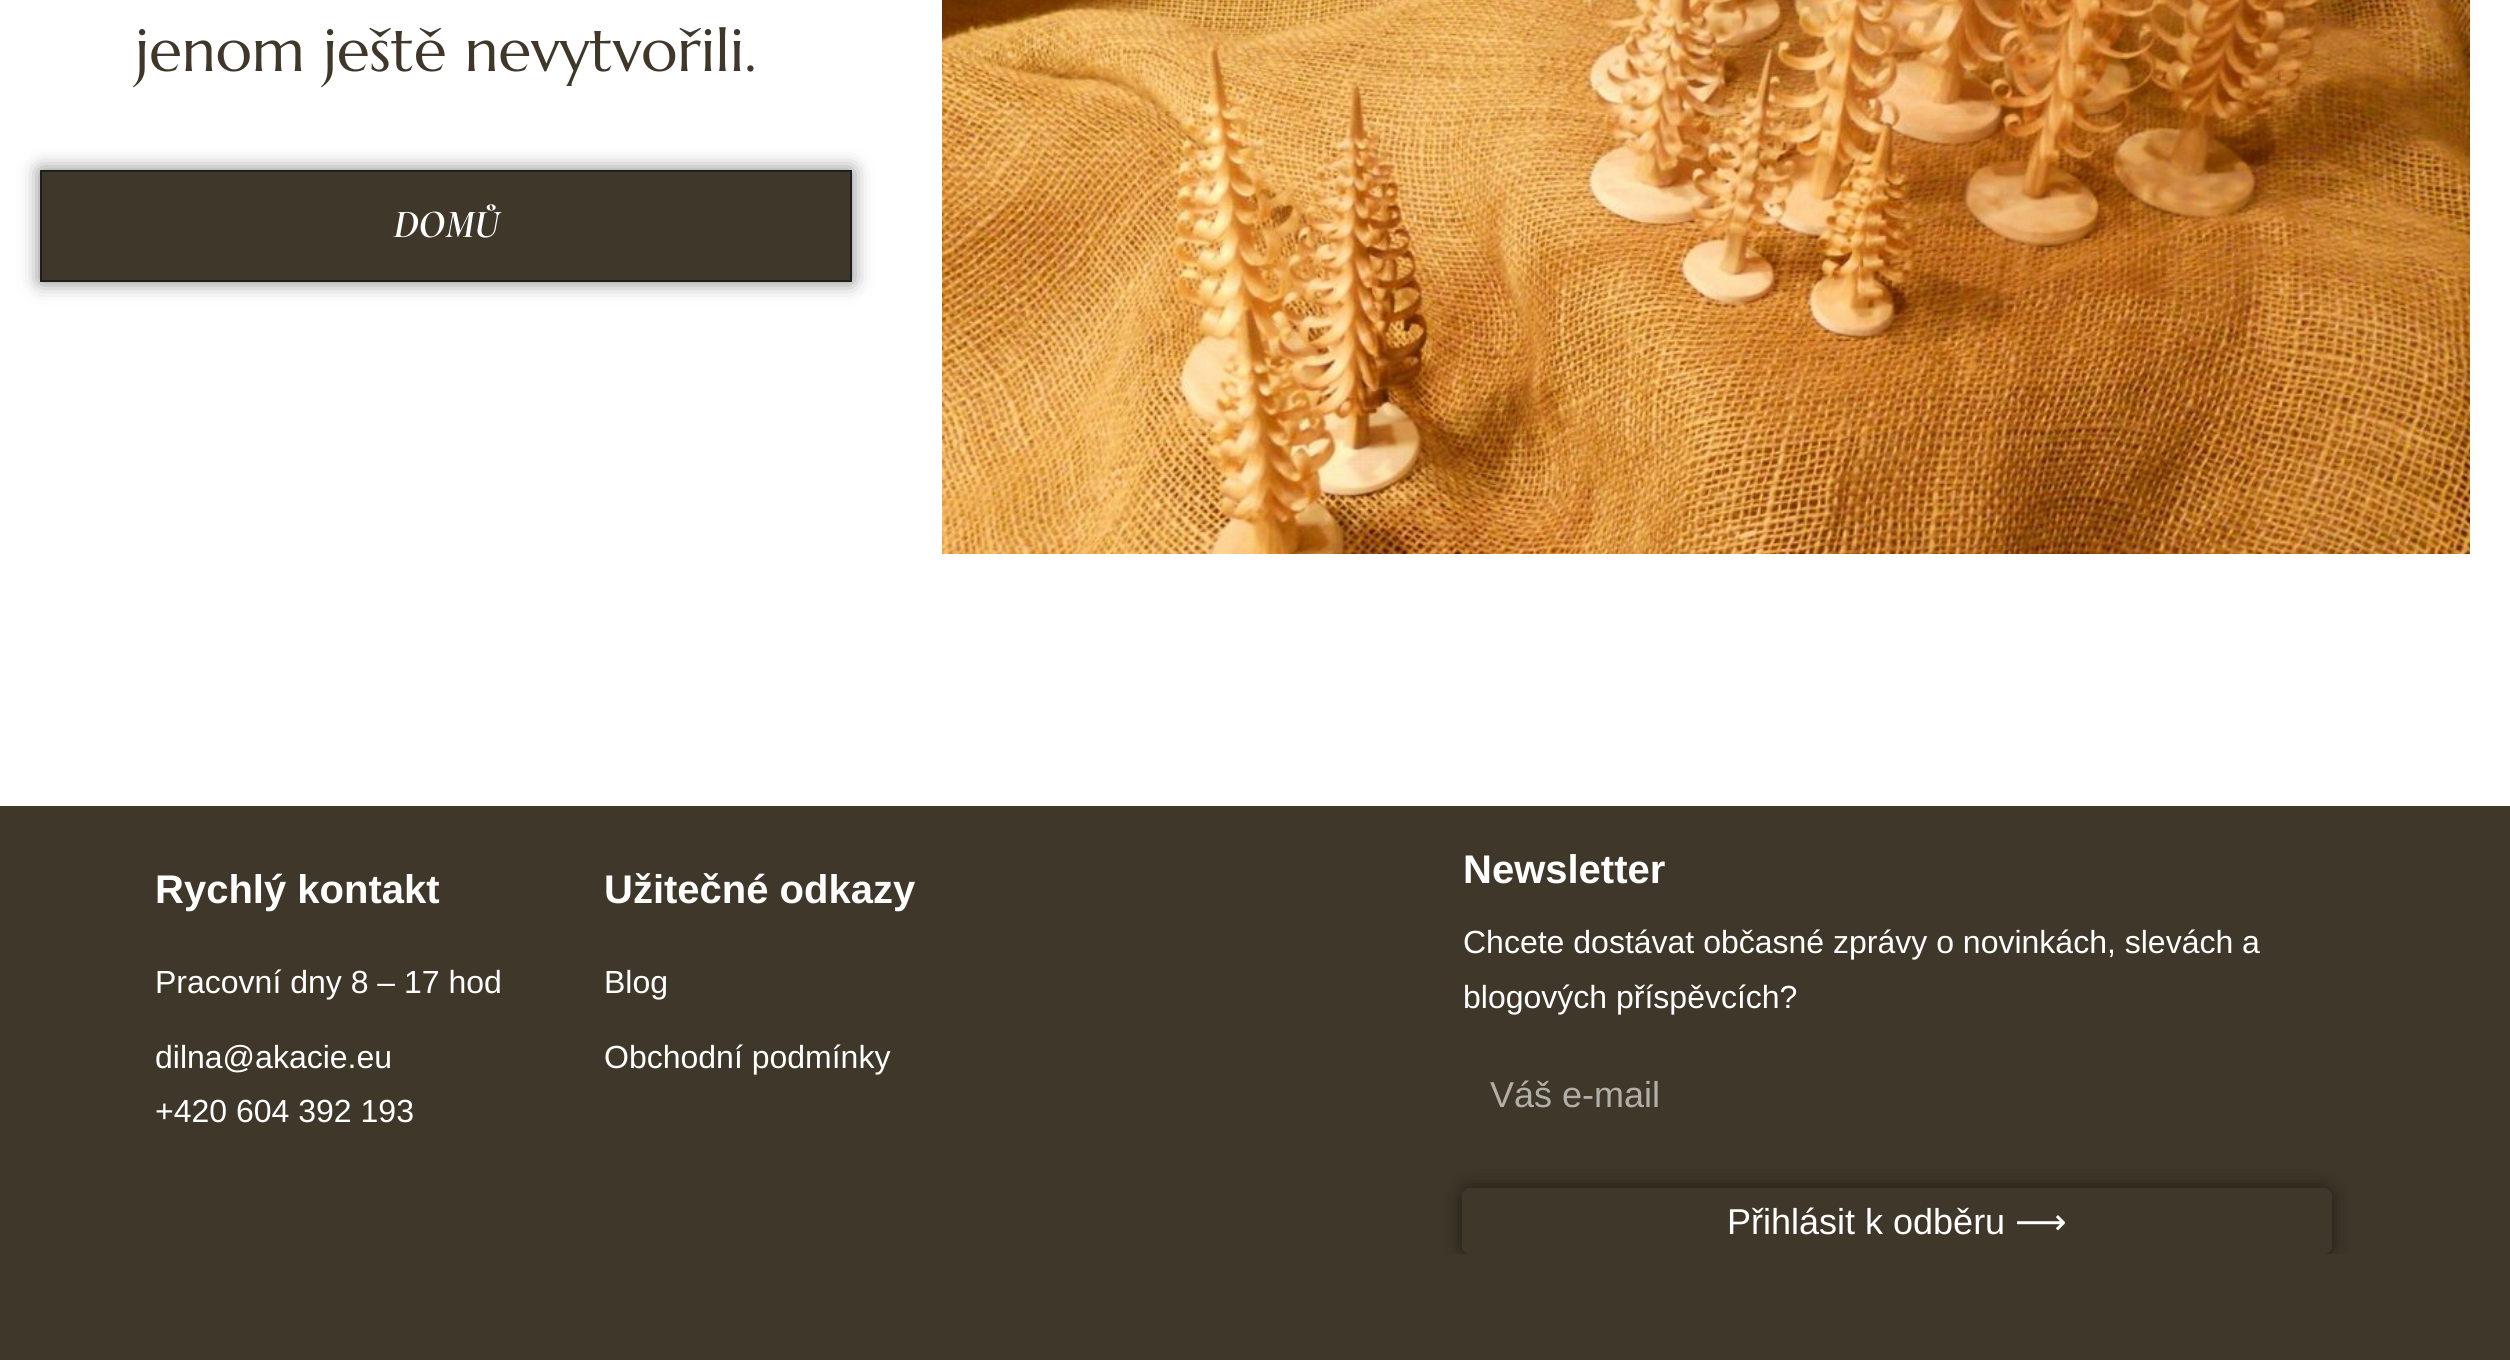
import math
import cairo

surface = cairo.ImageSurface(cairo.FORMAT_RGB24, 2510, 1360)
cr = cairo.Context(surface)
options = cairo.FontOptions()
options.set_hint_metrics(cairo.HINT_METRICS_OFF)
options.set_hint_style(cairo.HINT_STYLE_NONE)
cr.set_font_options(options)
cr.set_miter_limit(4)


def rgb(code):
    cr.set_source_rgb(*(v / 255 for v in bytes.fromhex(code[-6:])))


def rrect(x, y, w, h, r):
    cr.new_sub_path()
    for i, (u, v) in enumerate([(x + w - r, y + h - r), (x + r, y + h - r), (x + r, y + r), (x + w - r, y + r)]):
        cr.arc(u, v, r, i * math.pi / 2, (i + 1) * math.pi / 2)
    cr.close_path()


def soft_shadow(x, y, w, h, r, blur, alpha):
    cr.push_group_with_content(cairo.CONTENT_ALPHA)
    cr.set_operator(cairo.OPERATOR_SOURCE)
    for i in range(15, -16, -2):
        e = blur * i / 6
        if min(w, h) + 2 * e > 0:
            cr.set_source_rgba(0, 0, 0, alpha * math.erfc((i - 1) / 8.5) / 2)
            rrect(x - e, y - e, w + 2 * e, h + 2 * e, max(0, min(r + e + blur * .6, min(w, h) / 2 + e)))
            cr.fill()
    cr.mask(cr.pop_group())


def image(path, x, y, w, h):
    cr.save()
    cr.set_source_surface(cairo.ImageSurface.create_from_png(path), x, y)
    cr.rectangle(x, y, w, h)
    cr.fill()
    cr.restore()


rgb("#ffffff")
cr.paint()
rgb("#000000")
soft_shadow(40, 170, 812, 112, 0, 10, 0.5)
rgb("#3f3729")
cr.rectangle(41, 171, 810, 110)
cr.fill_preserve()
rgb("#1e1e1e")
cr.stroke()
image("img/1.png", 942, 0, 1528, 554)
rgb("#3f3729")
cr.rectangle(0, 806, 2510, 448)
cr.fill()
rgb("#000000")
soft_shadow(1462, 1188, 870, 66, 8, 10, 0.5)
rgb("#3f3729")
rrect(1462, 1188, 870, 66, 8)
cr.fill()
cr.rectangle(0, 1254, 2510, 106)
cr.fill()
cr.select_font_face("Marcellus")
cr.set_font_size(60)
cr.move_to(135, 71)
cr.show_text("jenom ještě nevytvořili.")
cr.select_font_face("Cormorant Garamond", cairo.FONT_SLANT_ITALIC, cairo.FONT_WEIGHT_BOLD)
cr.set_font_size(40)
rgb("#ffffff")
cr.move_to(393, 237)
cr.show_text("DOMŮ")
cr.select_font_face("Liberation Sans", cairo.FONT_SLANT_NORMAL, cairo.FONT_WEIGHT_BOLD)
cr.move_to(155, 903)
cr.show_text("Rychlý kontakt")
cr.select_font_face("Liberation Sans")
cr.set_font_size(32)
for x, y, s in [
    (155, 993, "Pracovní dny 8 – 17 hod"),
    (155, 1068, "dilna@akacie.eu"),
    (155, 1122, "+420 604 392 193"),
]:
    cr.move_to(x, y)
    cr.show_text(s)
cr.select_font_face("Liberation Sans", cairo.FONT_SLANT_NORMAL, cairo.FONT_WEIGHT_BOLD)
cr.set_font_size(40)
cr.move_to(604, 903)
cr.show_text("Užitečné odkazy")
cr.select_font_face("Liberation Sans")
cr.set_font_size(32)
cr.move_to(604, 993)
cr.show_text("Blog")
cr.move_to(604, 1068)
cr.show_text("Obchodní podmínky")
cr.select_font_face("Liberation Sans", cairo.FONT_SLANT_NORMAL, cairo.FONT_WEIGHT_BOLD)
cr.set_font_size(40)
cr.move_to(1463, 883)
cr.show_text("Newsletter")
cr.select_font_face("Liberation Sans")
cr.set_font_size(32)
cr.move_to(1463, 953)
cr.show_text("Chcete dostávat občasné zprávy o novinkách, slevách a")
cr.move_to(1463, 1008)
cr.show_text("blogových příspěvcích?")
cr.set_font_size(36)
rgb("#b2afa9")
cr.move_to(1490, 1107)
cr.show_text("Váš e-mail")
rgb("#ffffff")
cr.move_to(1727, 1234)
cr.show_text("Přihlásit k odběru")
cr.select_font_face("DejaVu Sans")
cr.move_to(2015, 1234)
cr.show_text("⟶")
surface.write_to_png("page.png")
